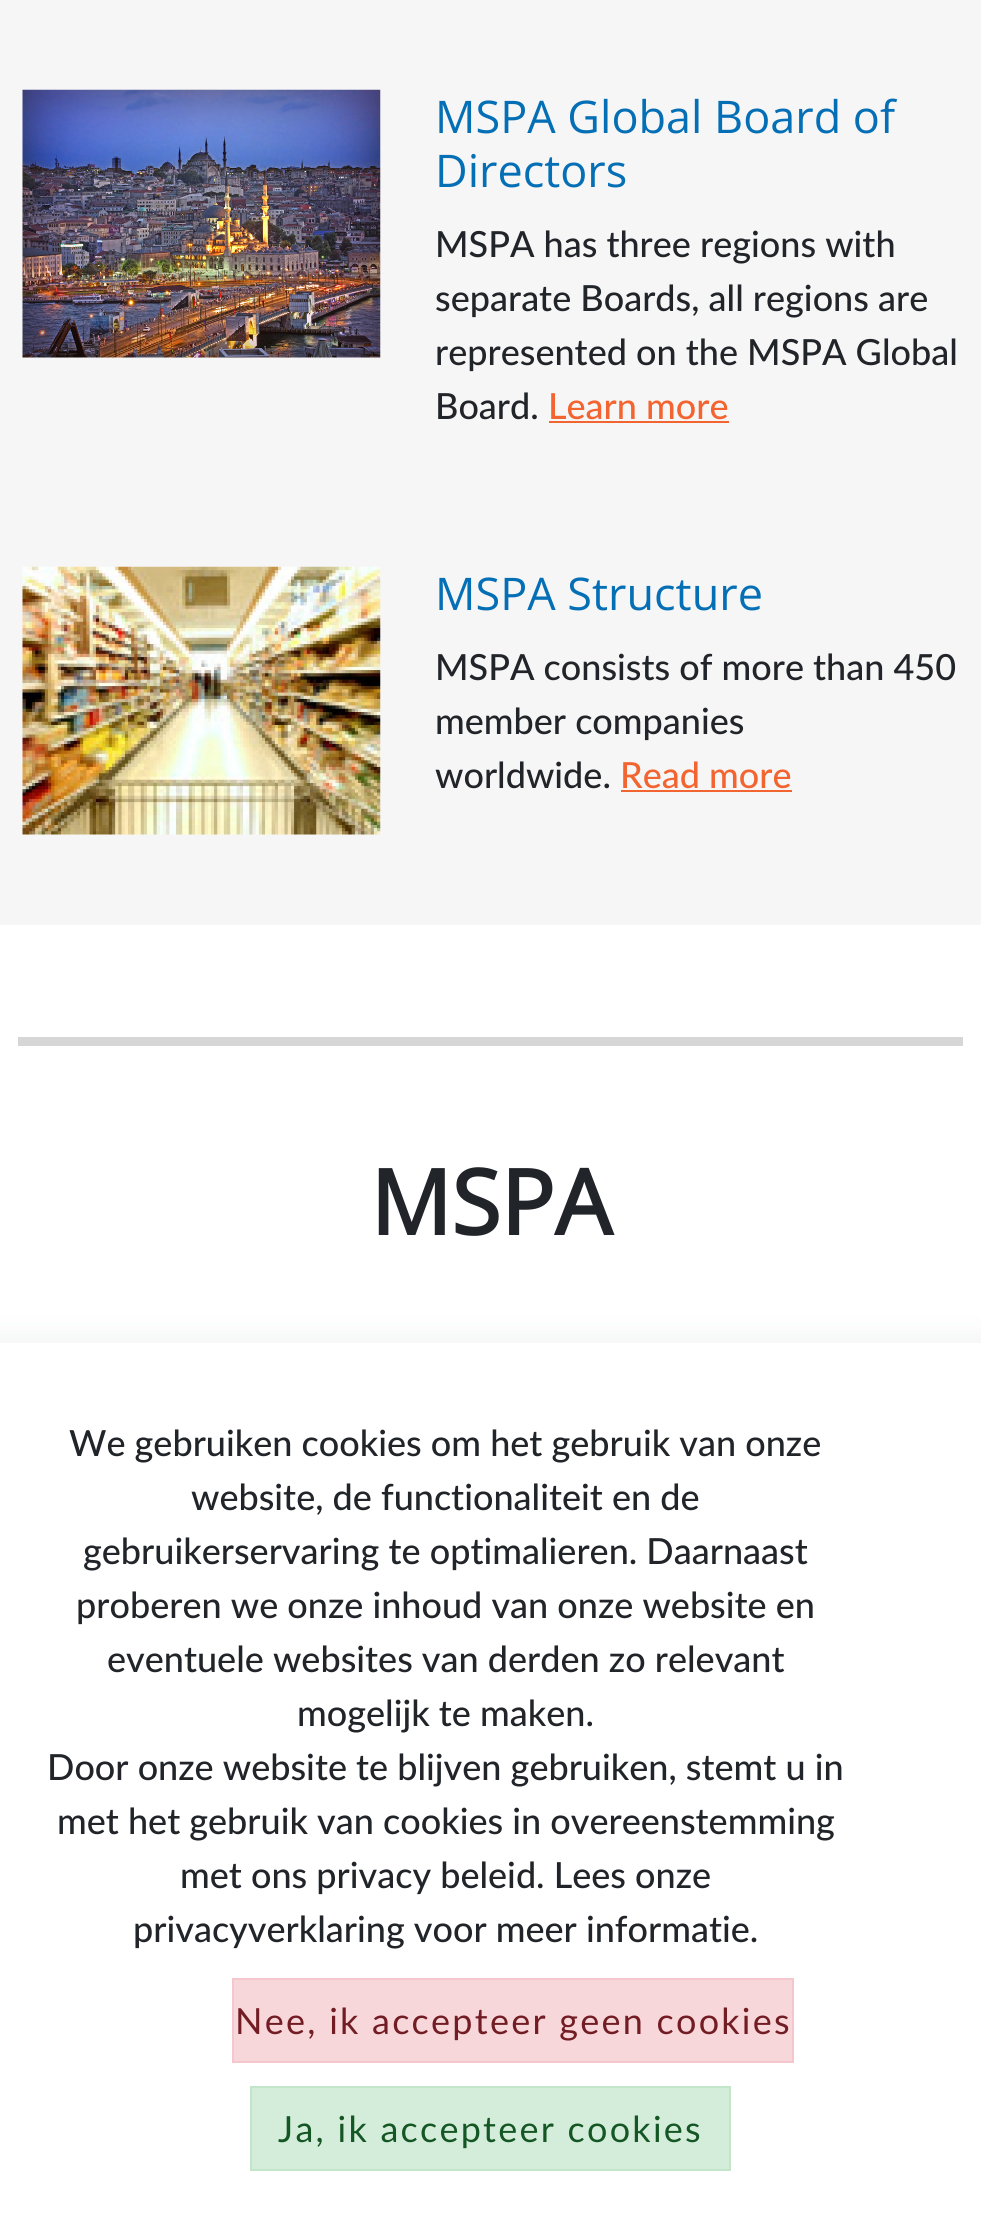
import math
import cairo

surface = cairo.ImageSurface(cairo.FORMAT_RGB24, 981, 2215)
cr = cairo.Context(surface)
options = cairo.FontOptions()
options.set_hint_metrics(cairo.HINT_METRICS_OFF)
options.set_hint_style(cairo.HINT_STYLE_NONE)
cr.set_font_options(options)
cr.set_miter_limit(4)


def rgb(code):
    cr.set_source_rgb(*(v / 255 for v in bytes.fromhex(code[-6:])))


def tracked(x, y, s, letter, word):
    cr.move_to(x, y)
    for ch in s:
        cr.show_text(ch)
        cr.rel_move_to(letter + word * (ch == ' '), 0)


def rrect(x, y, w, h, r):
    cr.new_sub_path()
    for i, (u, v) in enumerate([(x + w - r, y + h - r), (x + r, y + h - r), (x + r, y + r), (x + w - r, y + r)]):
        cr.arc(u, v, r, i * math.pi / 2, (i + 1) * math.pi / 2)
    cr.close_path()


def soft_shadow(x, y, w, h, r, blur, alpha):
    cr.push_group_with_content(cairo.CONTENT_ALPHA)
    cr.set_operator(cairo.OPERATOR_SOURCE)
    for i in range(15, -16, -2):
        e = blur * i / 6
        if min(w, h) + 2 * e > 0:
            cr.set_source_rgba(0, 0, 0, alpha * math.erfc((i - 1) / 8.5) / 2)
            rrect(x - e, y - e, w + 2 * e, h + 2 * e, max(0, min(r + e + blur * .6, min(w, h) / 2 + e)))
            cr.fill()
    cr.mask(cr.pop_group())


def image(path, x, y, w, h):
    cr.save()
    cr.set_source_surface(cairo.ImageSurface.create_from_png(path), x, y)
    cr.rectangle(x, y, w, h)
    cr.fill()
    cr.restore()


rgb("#ffffff")
cr.paint()
rgb("#f7f6f7")
cr.rectangle(0, 0, 981, 925)
cr.fill()
image("img/1.png", 22, 89, 359, 269)
rgb("#f26531")
cr.rectangle(549, 421, 180, 2)
cr.fill()
image("img/2.png", 22, 566, 359, 269)
cr.rectangle(621, 790, 171, 2)
cr.fill()
rgb("#d6d6d6")
cr.rectangle(18, 1037, 945, 9)
cr.fill()
rgb("#293746")
soft_shadow(-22, 1332, 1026, 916, 0, 11, 0.05)
rgb("#ffffff")
cr.rectangle(0, 1343, 981, 872)
cr.fill()
rgb("#f8d7da")
cr.rectangle(233, 1979, 560, 83)
cr.fill_preserve()
rgb("#f5c6cb")
cr.stroke()
rgb("#d4edda")
cr.rectangle(251, 2087, 479, 83)
cr.fill_preserve()
rgb("#c3e6cb")
cr.stroke()
cr.select_font_face("Open Sans")
cr.set_font_size(45)
rgb("#056fb6")
cr.move_to(435, 133)
cr.show_text("MSPA Global Board of")
cr.move_to(435, 187)
cr.show_text("Directors")
cr.select_font_face("Lato Medium")
cr.set_font_size(36)
rgb("#212529")
for x, y, s in [
    (435, 257, "MSPA has three regions with"),
    (435, 311, "separate Boards, all regions are"),
    (435, 365, "represented on the MSPA Global"),
    (435, 419, "Board."),
]:
    cr.move_to(x, y)
    cr.show_text(s)
rgb("#f26531")
cr.move_to(548, 419)
cr.show_text("Learn more")
cr.select_font_face("Open Sans")
cr.set_font_size(45)
rgb("#056fb6")
cr.move_to(435, 610)
cr.show_text("MSPA Structure")
cr.select_font_face("Lato Medium")
cr.set_font_size(36)
rgb("#212529")
for x, y, s in [
    (435, 680, "MSPA consists of more than 450"),
    (435, 734, "member companies"),
    (435, 788, "worldwide."),
]:
    cr.move_to(x, y)
    cr.show_text(s)
rgb("#f26531")
cr.move_to(620, 788)
cr.show_text("Read more")
cr.select_font_face("Open Sans", cairo.FONT_SLANT_NORMAL, cairo.FONT_WEIGHT_BOLD)
cr.set_font_size(90)
rgb("#212529")
cr.move_to(370, 1235)
cr.show_text("MSPA")
cr.select_font_face("Lato Medium")
cr.set_font_size(36)
for x, y, s in [
    (69, 1456, "We gebruiken cookies om het gebruik van onze"),
    (191, 1510, "website, de functionaliteit en de"),
    (83, 1564, "gebruikerservaring te optimalieren. Daarnaast"),
    (76, 1618, "proberen we onze inhoud van onze website en"),
    (107, 1672, "eventuele websites van derden zo relevant"),
    (297, 1726, "mogelijk te maken."),
    (47, 1780, "Door onze website te blijven gebruiken, stemt u in"),
    (57, 1834, "met het gebruik van cookies in overeenstemming"),
    (180, 1888, "met ons privacy beleid. Lees onze"),
    (133, 1942, "privacyverklaring voor meer informatie."),
]:
    cr.move_to(x, y)
    cr.show_text(s)
cr.select_font_face("Lato")
rgb("#721c24")
tracked(235, 2034, "Nee, ik accepteer geen cookies", 2.25, 0)
rgb("#155724")
tracked(278, 2142, "Ja, ik accepteer cookies", 2.25, 0)
surface.write_to_png("page.png")
